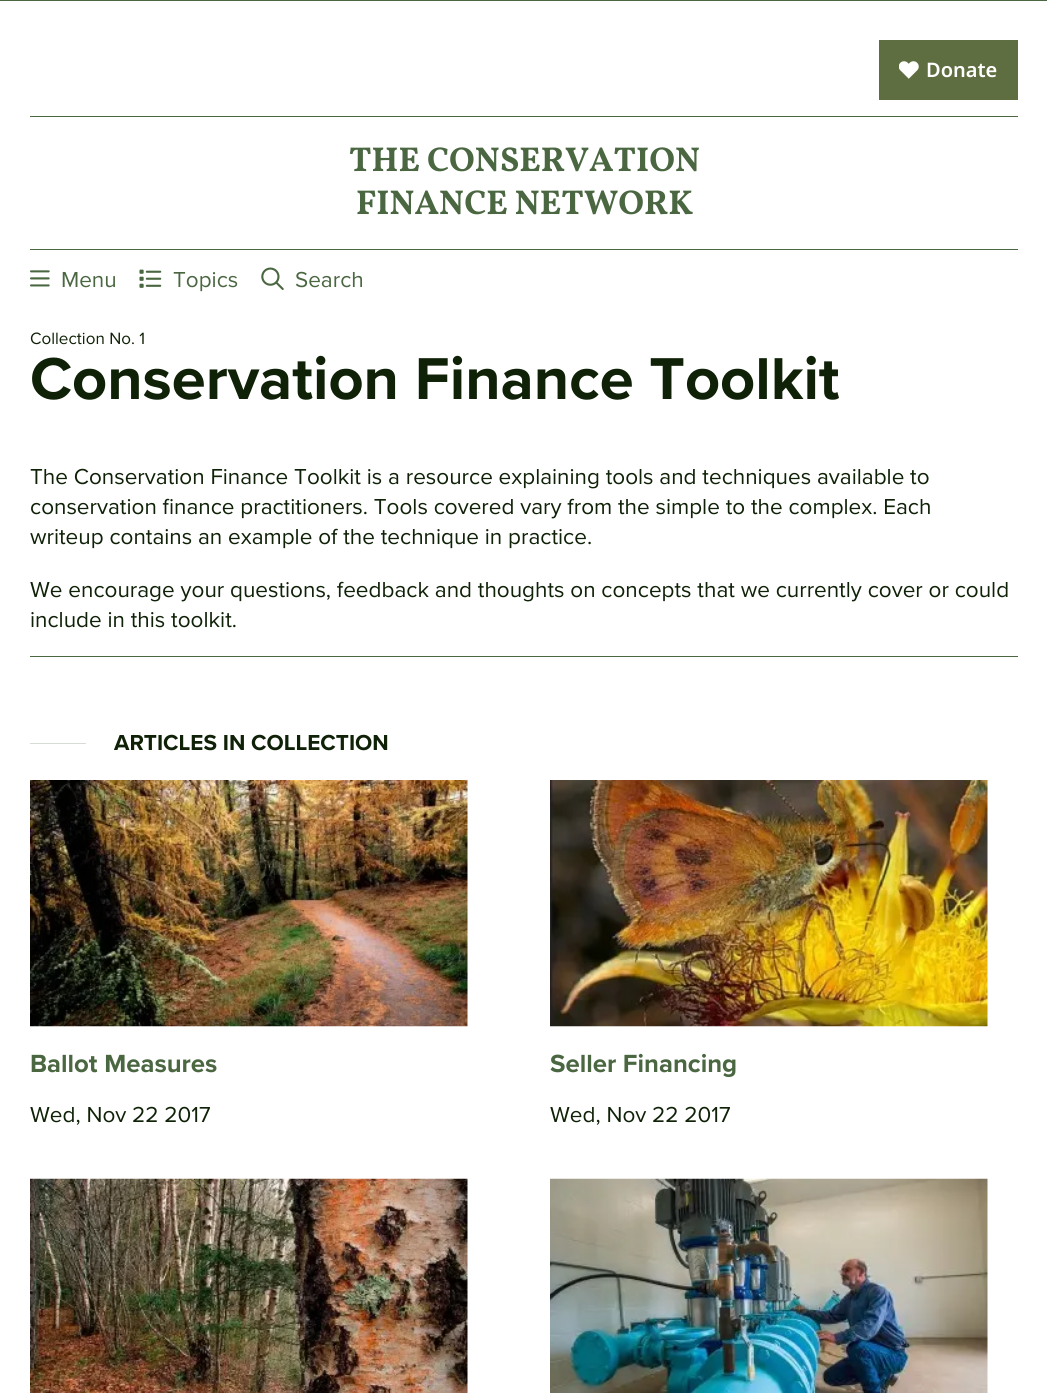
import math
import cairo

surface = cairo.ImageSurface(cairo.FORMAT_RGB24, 1047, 1393)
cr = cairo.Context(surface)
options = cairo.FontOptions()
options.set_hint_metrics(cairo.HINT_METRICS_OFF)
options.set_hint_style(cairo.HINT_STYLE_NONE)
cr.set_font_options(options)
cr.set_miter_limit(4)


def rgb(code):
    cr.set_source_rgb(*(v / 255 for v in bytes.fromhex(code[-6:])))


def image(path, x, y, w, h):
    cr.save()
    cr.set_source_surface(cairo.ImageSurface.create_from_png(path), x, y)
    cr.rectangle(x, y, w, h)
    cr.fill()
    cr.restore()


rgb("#ffffff")
cr.paint()
for x, y, w, h, color in [
    (0, 0, 1047, 1, "#4a6741"),
    (30, 116, 988, 1, "#4a6741"),
    (879, 40, 139, 60, "#5f6e40"),
]:
    rgb(color)
    cr.rectangle(x, y, w, h)
    cr.fill()
image("img/1.png", 899, 61, 20, 18)
rgb("#4a6741")
cr.rectangle(30, 249, 988, 1)
cr.fill()
image("img/2.png", 30, 270, 20, 17)
image("img/3.png", 139, 269, 23, 19)
image("img/4.png", 261, 267, 23, 23)
cr.rectangle(30, 656, 988, 1)
cr.fill()
rgb("#d7dcd5")
cr.rectangle(30, 743, 56, 1)
cr.fill()
image("img/5.png", 30, 780, 438, 247)
image("img/6.png", 550, 780, 438, 247)
image("img/7.png", 30, 1178, 438, 215)
image("img/8.png", 550, 1178, 438, 215)
cr.select_font_face("Noto Sans SemiBold")
cr.set_font_size(20)
rgb("#ffffff")
cr.move_to(926, 77)
cr.show_text("Donate")
cr.select_font_face("Vollkorn", cairo.FONT_SLANT_NORMAL, cairo.FONT_WEIGHT_BOLD)
cr.set_font_size(34.5)
rgb("#4a6741")
cr.move_to(349, 171)
cr.show_text("THE CONSERVATION")
cr.move_to(356, 214)
cr.show_text("FINANCE NETWORK")
cr.select_font_face("Proxima Nova")
cr.set_font_size(22.5)
for x, y, s in [
    (61, 287, "Menu"),
    (173, 287, "Topics"),
    (295, 287, "Search"),
]:
    cr.move_to(x, y)
    cr.show_text(s)
cr.set_font_size(17)
rgb("#0f2107")
cr.move_to(30, 344)
cr.show_text("Collection No. 1")
cr.select_font_face("Proxima Nova", cairo.FONT_SLANT_NORMAL, cairo.FONT_WEIGHT_BOLD)
cr.set_font_size(61.2)
cr.move_to(30, 399)
cr.show_text("Conservation Finance Toolkit")
cr.select_font_face("Proxima Nova")
cr.set_font_size(22.5)
for x, y, s in [
    (30, 484, "The Conservation Finance Toolkit is a resource explaining tools and techniques available to"),
    (30, 514, "conservation finance practitioners. Tools covered vary from the simple to the complex. Each"),
    (30, 544, "writeup contains an example of the technique in practice."),
    (30, 597, "We encourage your questions, feedback and thoughts on concepts that we currently cover or could"),
    (30, 627, "include in this toolkit."),
]:
    cr.move_to(x, y)
    cr.show_text(s)
cr.select_font_face("Proxima Nova", cairo.FONT_SLANT_NORMAL, cairo.FONT_WEIGHT_BOLD)
cr.move_to(114, 750)
cr.show_text("ARTICLES IN COLLECTION")
cr.set_font_size(25.75)
rgb("#4a6741")
cr.move_to(30, 1072)
cr.show_text("Ballot Measures")
cr.select_font_face("Proxima Nova")
cr.set_font_size(22.5)
rgb("#0f2107")
cr.move_to(30, 1122)
cr.show_text("Wed, Nov 22 2017")
cr.select_font_face("Proxima Nova", cairo.FONT_SLANT_NORMAL, cairo.FONT_WEIGHT_BOLD)
cr.set_font_size(25.75)
rgb("#4a6741")
cr.move_to(550, 1072)
cr.show_text("Seller Financing")
cr.select_font_face("Proxima Nova")
cr.set_font_size(22.5)
rgb("#0f2107")
cr.move_to(550, 1122)
cr.show_text("Wed, Nov 22 2017")
surface.write_to_png("page.png")
